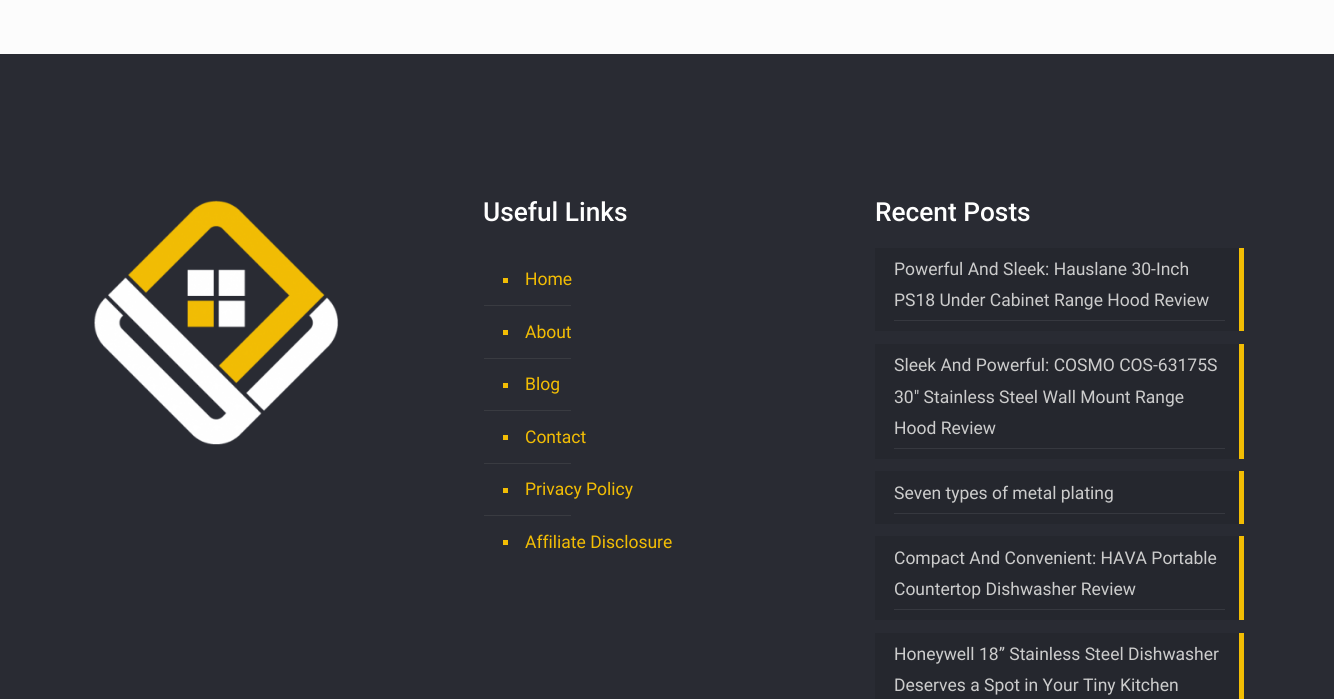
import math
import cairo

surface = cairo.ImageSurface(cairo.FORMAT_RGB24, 1334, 699)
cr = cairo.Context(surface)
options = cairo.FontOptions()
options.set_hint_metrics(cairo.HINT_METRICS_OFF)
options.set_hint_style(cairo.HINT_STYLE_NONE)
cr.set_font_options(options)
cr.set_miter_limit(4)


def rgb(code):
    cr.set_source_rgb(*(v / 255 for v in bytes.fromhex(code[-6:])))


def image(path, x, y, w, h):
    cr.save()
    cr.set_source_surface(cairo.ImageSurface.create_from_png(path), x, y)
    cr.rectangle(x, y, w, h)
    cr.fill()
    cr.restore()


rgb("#fcfcfc")
cr.paint()
rgb("#292b33")
cr.rectangle(0, 54, 1334, 645)
cr.fill()
image("img/1.png", 94, 200, 245, 245)
for x, y, w, h, color in [
    (503, 278, 5, 5, "#f2bd04"),
    (484, 305, 87, 1, "#393b41"),
    (503, 330, 5, 5, "#f2bd04"),
    (484, 358, 87, 1, "#393b41"),
    (503, 383, 5, 5, "#f2bd04"),
    (484, 410, 87, 1, "#393b41"),
    (503, 435, 5, 5, "#f2bd04"),
    (484, 463, 87, 1, "#393b41"),
    (503, 488, 5, 5, "#f2bd04"),
    (484, 515, 87, 1, "#393b41"),
    (503, 540, 5, 5, "#f2bd04"),
    (875, 248, 364, 83, "#25272e"),
    (894, 320, 331, 1, "#36383f"),
    (1239, 248, 5, 83, "#f2bd04"),
    (875, 344, 364, 115, "#25272e"),
    (894, 448, 331, 1, "#36383f"),
    (1239, 344, 5, 115, "#f2bd04"),
    (875, 471, 364, 53, "#25272e"),
    (894, 513, 331, 1, "#36383f"),
    (1239, 471, 5, 53, "#f2bd04"),
    (875, 536, 364, 84, "#25272e"),
    (894, 609, 331, 1, "#36383f"),
    (1239, 536, 5, 84, "#f2bd04"),
    (875, 633, 364, 66, "#25272e"),
    (1239, 633, 5, 66, "#f2bd04"),
]:
    rgb(color)
    cr.rectangle(x, y, w, h)
    cr.fill()
cr.select_font_face("Roboto Medium")
cr.set_font_size(26.25)
rgb("#ffffff")
cr.move_to(483, 221)
cr.show_text("Useful Links")
cr.select_font_face("Roboto")
cr.set_font_size(17.5)
rgb("#f2bd04")
for x, y, s in [
    (525, 285, "Home"),
    (525, 338, "About"),
    (525, 390, "Blog"),
    (525, 443, "Contact"),
    (525, 495, "Privacy Policy"),
    (525, 548, "Affiliate Disclosure"),
]:
    cr.move_to(x, y)
    cr.show_text(s)
cr.select_font_face("Roboto Medium")
cr.set_font_size(26.25)
rgb("#ffffff")
cr.move_to(875, 221)
cr.show_text("Recent Posts")
cr.select_font_face("Roboto")
cr.set_font_size(17.5)
rgb("#cccccc")
for x, y, s in [
    (894, 275, "Powerful And Sleek: Hauslane 30-Inch"),
    (894, 306, "PS18 Under Cabinet Range Hood Review"),
    (894, 371, "Sleek And Powerful: COSMO COS-63175S"),
    (894, 403, "30″ Stainless Steel Wall Mount Range"),
    (894, 434, "Hood Review"),
    (894, 499, "Seven types of metal plating"),
    (894, 564, "Compact And Convenient: HAVA Portable"),
    (894, 595, "Countertop Dishwasher Review"),
    (894, 660, "Honeywell 18” Stainless Steel Dishwasher"),
    (894, 691, "Deserves a Spot in Your Tiny Kitchen"),
]:
    cr.move_to(x, y)
    cr.show_text(s)
surface.write_to_png("page.png")
